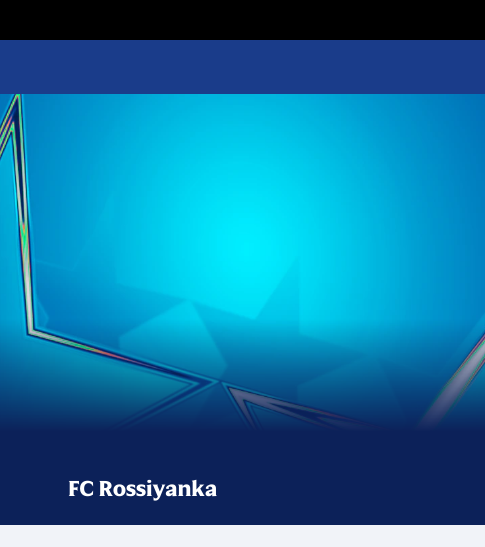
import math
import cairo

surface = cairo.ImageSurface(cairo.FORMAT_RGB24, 485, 547)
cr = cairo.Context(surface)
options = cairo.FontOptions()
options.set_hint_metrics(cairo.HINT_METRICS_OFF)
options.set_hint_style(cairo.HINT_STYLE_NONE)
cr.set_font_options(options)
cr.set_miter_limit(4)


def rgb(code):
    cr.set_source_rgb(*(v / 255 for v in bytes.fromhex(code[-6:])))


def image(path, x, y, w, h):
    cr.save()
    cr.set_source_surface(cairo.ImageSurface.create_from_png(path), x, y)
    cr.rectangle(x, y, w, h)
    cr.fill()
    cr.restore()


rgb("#f1f3f8")
cr.paint()
for x, y, w, h, color in [
    (0, 0, 485, 40, "#000000"),
    (0, 40, 485, 54, "#1a3c8a"),
    (0, 469, 485, 56, "#0c2159"),
]:
    rgb(color)
    cr.rectangle(x, y, w, h)
    cr.fill()
image("img/1.png", 0, 94, 485, 375)
cr.select_font_face("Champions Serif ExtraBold")
cr.set_font_size(24)
rgb("#ffffff")
cr.move_to(68, 496)
cr.show_text("FC Rossiyanka")
surface.write_to_png("page.png")
